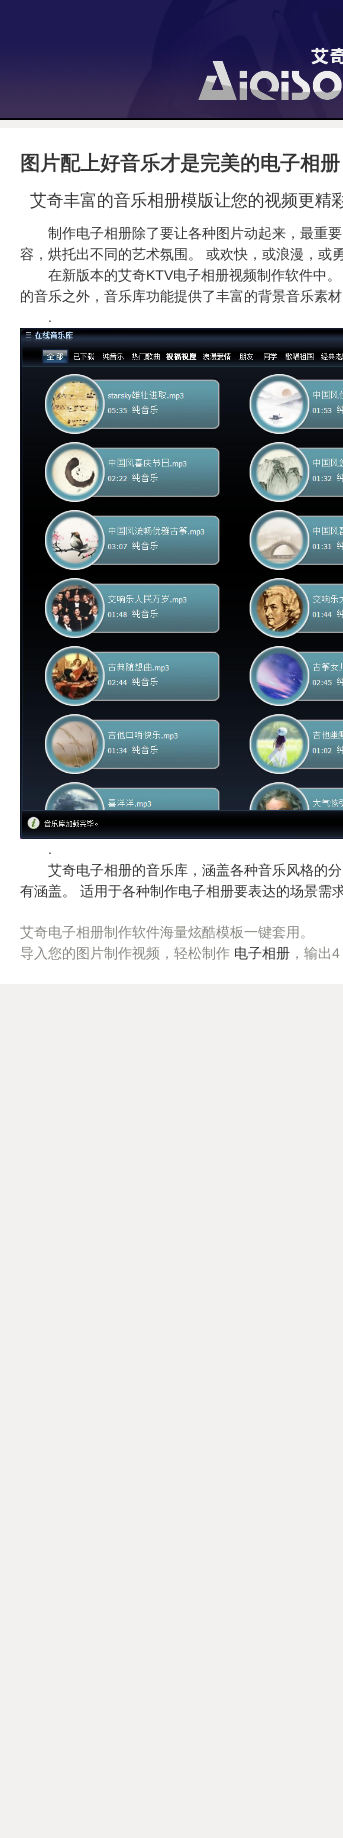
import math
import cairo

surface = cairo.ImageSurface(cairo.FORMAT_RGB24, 343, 1838)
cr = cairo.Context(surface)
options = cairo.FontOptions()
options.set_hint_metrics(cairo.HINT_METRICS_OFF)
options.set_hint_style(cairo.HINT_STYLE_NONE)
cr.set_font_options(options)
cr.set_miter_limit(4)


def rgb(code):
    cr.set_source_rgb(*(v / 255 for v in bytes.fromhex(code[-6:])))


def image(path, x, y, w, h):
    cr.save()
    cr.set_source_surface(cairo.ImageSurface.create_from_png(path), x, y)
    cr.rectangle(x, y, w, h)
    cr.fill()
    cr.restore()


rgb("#f3f0f0")
cr.paint()
image("img/1.png", 0, 0, 343, 120)
image("img/2.png", 127, 0, 216, 118)
image("img/3.png", 198, 47, 145, 53)
rgb("#ffffff")
cr.rectangle(0, 128, 343, 856)
cr.fill()
image("img/4.png", 20, 328, 323, 511)
cr.select_font_face("WenQuanYi Zen Hei", cairo.FONT_SLANT_NORMAL, cairo.FONT_WEIGHT_BOLD)
cr.set_font_size(20)
rgb("#333333")
cr.move_to(20, 170)
cr.show_text("图片配上好音乐才是完美的电子相册")
cr.select_font_face("WenQuanYi Zen Hei Medium")
cr.set_font_size(16.75)
cr.move_to(30, 206)
cr.show_text("艾奇丰富的音乐相册模版让您的视频更精彩")
cr.set_font_size(14)
for x, y, s in [
    (48, 238, "制作电子相册除了要让各种图片动起来，最重要"),
    (20, 259, "容，烘托出不同的艺术氛围。"),
    (206, 259, "或欢快，或浪漫，或勇"),
    (48, 280, "在新版本的艾奇"),
]:
    cr.move_to(x, y)
    cr.show_text(s)
cr.select_font_face("Liberation Sans")
cr.move_to(146, 280)
cr.show_text("KTV")
cr.select_font_face("WenQuanYi Zen Hei Medium")
cr.move_to(173, 280)
cr.show_text("电子相册视频制作软件中。")
cr.move_to(20, 301)
cr.show_text("的音乐之外，音乐库功能提供了丰富的背景音乐素材")
cr.select_font_face("Liberation Sans")
cr.move_to(48, 322)
cr.show_text(".")
cr.move_to(48, 854)
cr.show_text(".")
cr.select_font_face("WenQuanYi Zen Hei Medium")
for x, y, s in [
    (48, 875, "艾奇电子相册的音乐库，涵盖各种音乐风格的分"),
    (20, 896, "有涵盖。"),
    (80, 896, "适用于各种制作电子相册要表达的场景需求"),
]:
    cr.move_to(x, y)
    cr.show_text(s)
rgb("#878782")
cr.move_to(20, 937)
cr.show_text("艾奇电子相册制作软件海量炫酷模板一键套用。")
cr.move_to(20, 958)
cr.show_text("导入您的图片制作视频，轻松制作")
rgb("#333333")
cr.move_to(234, 958)
cr.show_text("电子相册")
rgb("#878782")
cr.move_to(290, 958)
cr.show_text("，输出")
cr.select_font_face("Liberation Sans")
cr.move_to(332, 958)
cr.show_text("4")
surface.write_to_png("page.png")
